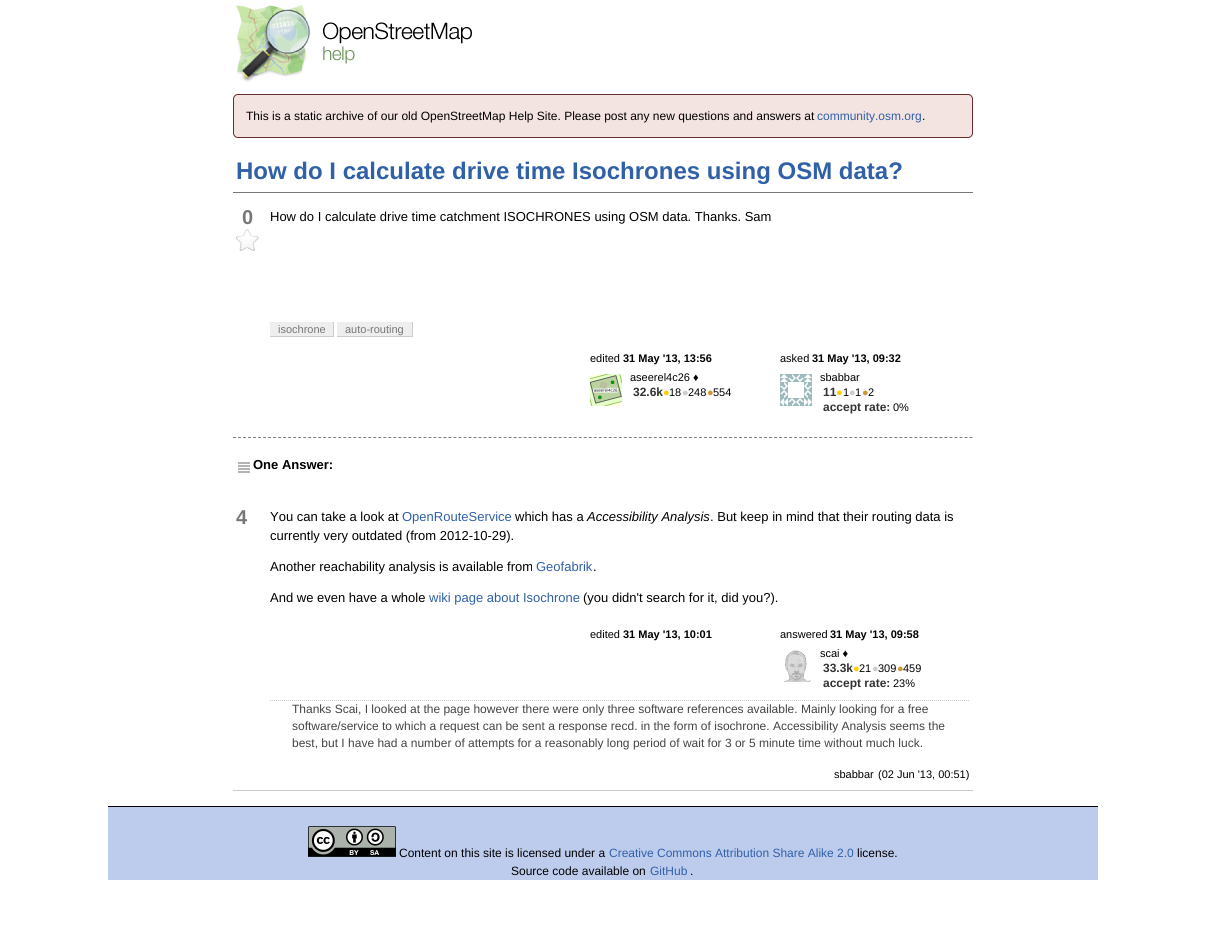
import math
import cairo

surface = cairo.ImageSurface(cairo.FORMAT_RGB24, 1205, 929)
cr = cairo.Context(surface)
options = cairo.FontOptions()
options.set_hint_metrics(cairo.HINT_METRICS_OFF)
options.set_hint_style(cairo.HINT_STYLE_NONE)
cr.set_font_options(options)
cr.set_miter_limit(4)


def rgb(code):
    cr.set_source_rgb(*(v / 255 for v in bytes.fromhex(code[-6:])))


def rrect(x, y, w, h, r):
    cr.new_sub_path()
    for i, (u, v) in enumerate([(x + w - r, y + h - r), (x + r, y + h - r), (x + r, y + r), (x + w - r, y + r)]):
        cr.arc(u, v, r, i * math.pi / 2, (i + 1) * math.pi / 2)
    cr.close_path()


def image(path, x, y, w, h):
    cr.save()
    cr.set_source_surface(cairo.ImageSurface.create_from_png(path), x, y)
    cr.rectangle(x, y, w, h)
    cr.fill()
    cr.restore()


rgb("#ffffff")
cr.paint()
image("img/1.png", 236, 5, 236, 77)
rgb("#f3e3e1")
rrect(233.5, 94.5, 739, 43, 4.5)
cr.fill_preserve()
rgb("#6b2b28")
cr.set_line_width(1)
cr.stroke()
rgb("#777777")
cr.rectangle(233, 192, 740, 1)
cr.fill()
image("img/2.png", 236, 229, 23, 22)
for x, y, w, h, color in [
    (270, 322, 63, 14, "#eeeeee"),
    (333, 322, 1, 15, "#cccccc"),
    (270, 336, 64, 1, "#cccccc"),
    (337, 322, 75, 14, "#eeeeee"),
    (412, 322, 1, 15, "#cccccc"),
    (337, 336, 76, 1, "#cccccc"),
]:
    rgb(color)
    cr.rectangle(x, y, w, h)
    cr.fill()
image("img/3.png", 590, 374, 32, 32)
image("img/4.png", 780, 374, 32, 32)
cr.new_path()
cr.move_to(233, 437.5)
cr.line_to(973, 437.5)
rgb("#808080")
cr.set_dash([3, 2.01])
cr.stroke()
image("img/5.png", 238, 462, 12, 11)
rgb("#ccccce")
cr.rectangle(233, 790, 740, 1)
cr.fill()
image("img/6.png", 784, 650, 27, 32)
cr.new_path()
cr.move_to(270, 700.5)
cr.line_to(970, 700.5)
cr.set_dash([1, 1])
cr.stroke()
rgb("#bdcced")
cr.rectangle(108, 807, 990, 73)
cr.fill()
rgb("#000000")
cr.rectangle(108, 806, 990, 1)
cr.fill()
image("img/7.png", 308, 826, 88, 31)
cr.select_font_face("Liberation Sans")
cr.set_font_size(12)
cr.move_to(246, 120)
cr.show_text("This is a static archive of our old OpenStreetMap Help Site. Please post any new questions and answers at")
rgb("#3060a8")
cr.move_to(817, 120)
cr.show_text("community.osm.org")
rgb("#000000")
cr.move_to(922, 120)
cr.show_text(".")
cr.select_font_face("Liberation Sans", cairo.FONT_SLANT_NORMAL, cairo.FONT_WEIGHT_BOLD)
cr.set_font_size(24)
rgb("#3060a8")
cr.move_to(236, 179)
cr.show_text("How do I calculate drive time Isochrones using OSM data?")
cr.set_font_size(20)
rgb("#777777")
cr.move_to(242, 224)
cr.show_text("0")
cr.select_font_face("Liberation Sans")
cr.set_font_size(13)
rgb("#000000")
cr.move_to(270, 221)
cr.show_text("How do I calculate drive time catchment ISOCHRONES using OSM data. Thanks. Sam")
cr.set_font_size(11)
rgb("#777777")
cr.move_to(278, 333)
cr.show_text("isochrone")
cr.move_to(345, 333)
cr.show_text("auto-routing")
rgb("#000000")
cr.move_to(590, 362)
cr.show_text("edited")
cr.select_font_face("Liberation Sans", cairo.FONT_SLANT_NORMAL, cairo.FONT_WEIGHT_BOLD)
cr.move_to(623, 362)
cr.show_text("31 May '13, 13:56")
cr.select_font_face("Liberation Sans")
cr.move_to(630, 381)
cr.show_text("aseerel4c26 ♦")
cr.select_font_face("Liberation Sans", cairo.FONT_SLANT_NORMAL, cairo.FONT_WEIGHT_BOLD)
cr.set_font_size(12)
rgb("#333333")
cr.move_to(633, 396)
cr.show_text("32.6k")
cr.select_font_face("Liberation Sans")
cr.set_font_size(11)
rgb("#ffcc00")
cr.move_to(663, 396)
cr.show_text("●")
rgb("#000000")
cr.move_to(669, 396)
cr.show_text("18")
rgb("#cccccc")
cr.move_to(682, 396)
cr.show_text("●")
rgb("#000000")
cr.move_to(688, 396)
cr.show_text("248")
rgb("#cc9933")
cr.move_to(707, 396)
cr.show_text("●")
rgb("#000000")
cr.move_to(713, 396)
cr.show_text("554")
cr.move_to(780, 362)
cr.show_text("asked")
cr.select_font_face("Liberation Sans", cairo.FONT_SLANT_NORMAL, cairo.FONT_WEIGHT_BOLD)
cr.move_to(812, 362)
cr.show_text("31 May '13, 09:32")
cr.select_font_face("Liberation Sans")
cr.move_to(820, 381)
cr.show_text("sbabbar")
cr.select_font_face("Liberation Sans", cairo.FONT_SLANT_NORMAL, cairo.FONT_WEIGHT_BOLD)
cr.set_font_size(12)
rgb("#333333")
cr.move_to(823, 396)
cr.show_text("11")
cr.select_font_face("Liberation Sans")
cr.set_font_size(11)
rgb("#ffcc00")
cr.move_to(836, 396)
cr.show_text("●")
rgb("#000000")
cr.move_to(843, 396)
cr.show_text("1")
rgb("#cccccc")
cr.move_to(849, 396)
cr.show_text("●")
rgb("#000000")
cr.move_to(855, 396)
cr.show_text("1")
rgb("#cc9933")
cr.move_to(862, 396)
cr.show_text("●")
rgb("#000000")
cr.move_to(868, 396)
cr.show_text("2")
cr.select_font_face("Liberation Sans", cairo.FONT_SLANT_NORMAL, cairo.FONT_WEIGHT_BOLD)
cr.set_font_size(12)
rgb("#333333")
cr.move_to(823, 411)
cr.show_text("accept rate:")
cr.select_font_face("Liberation Sans")
cr.set_font_size(11)
rgb("#000000")
cr.move_to(893, 411)
cr.show_text("0%")
cr.select_font_face("Liberation Sans", cairo.FONT_SLANT_NORMAL, cairo.FONT_WEIGHT_BOLD)
cr.set_font_size(13)
cr.move_to(253, 469)
cr.show_text("One Answer:")
cr.set_font_size(20)
rgb("#777777")
cr.move_to(236, 524)
cr.show_text("4")
cr.select_font_face("Liberation Sans")
cr.set_font_size(13)
rgb("#000000")
cr.move_to(270, 521)
cr.show_text("You can take a look at")
rgb("#3060a8")
cr.move_to(402, 521)
cr.show_text("OpenRouteService")
rgb("#000000")
cr.move_to(515, 521)
cr.show_text("which has a")
cr.select_font_face("Liberation Sans", cairo.FONT_SLANT_ITALIC)
cr.move_to(587, 521)
cr.show_text("Accessibility Analysis")
cr.select_font_face("Liberation Sans")
for x, y, s in [
    (710, 521, ". But keep in mind that their routing data is"),
    (270, 540, "currently very outdated (from 2012-10-29)."),
    (270, 571, "Another reachability analysis is available from"),
]:
    cr.move_to(x, y)
    cr.show_text(s)
rgb("#3060a8")
cr.move_to(536, 571)
cr.show_text("Geofabrik")
rgb("#000000")
cr.move_to(593, 571)
cr.show_text(".")
cr.move_to(270, 602)
cr.show_text("And we even have a whole")
rgb("#3060a8")
cr.move_to(429, 602)
cr.show_text("wiki page about Isochrone")
rgb("#000000")
cr.move_to(583, 602)
cr.show_text("(you didn't search for it, did you?).")
cr.set_font_size(11)
cr.move_to(590, 638)
cr.show_text("edited")
cr.select_font_face("Liberation Sans", cairo.FONT_SLANT_NORMAL, cairo.FONT_WEIGHT_BOLD)
cr.move_to(623, 638)
cr.show_text("31 May '13, 10:01")
cr.select_font_face("Liberation Sans")
cr.move_to(780, 638)
cr.show_text("answered")
cr.select_font_face("Liberation Sans", cairo.FONT_SLANT_NORMAL, cairo.FONT_WEIGHT_BOLD)
cr.move_to(830, 638)
cr.show_text("31 May '13, 09:58")
cr.select_font_face("Liberation Sans")
cr.move_to(820, 657)
cr.show_text("scai ♦")
cr.select_font_face("Liberation Sans", cairo.FONT_SLANT_NORMAL, cairo.FONT_WEIGHT_BOLD)
cr.set_font_size(12)
rgb("#333333")
cr.move_to(823, 672)
cr.show_text("33.3k")
cr.select_font_face("Liberation Sans")
cr.set_font_size(11)
rgb("#ffcc00")
cr.move_to(853, 672)
cr.show_text("●")
rgb("#000000")
cr.move_to(859, 672)
cr.show_text("21")
rgb("#cccccc")
cr.move_to(872, 672)
cr.show_text("●")
rgb("#000000")
cr.move_to(878, 672)
cr.show_text("309")
rgb("#cc9933")
cr.move_to(897, 672)
cr.show_text("●")
rgb("#000000")
cr.move_to(903, 672)
cr.show_text("459")
cr.select_font_face("Liberation Sans", cairo.FONT_SLANT_NORMAL, cairo.FONT_WEIGHT_BOLD)
cr.set_font_size(12)
rgb("#333333")
cr.move_to(823, 687)
cr.show_text("accept rate:")
cr.select_font_face("Liberation Sans")
cr.set_font_size(11)
rgb("#000000")
cr.move_to(893, 687)
cr.show_text("23%")
cr.set_font_size(12)
rgb("#444444")
for x, y, s in [
    (292, 713, "Thanks Scai, I looked at the page however there were only three software references available. Mainly looking for a free"),
    (292, 730, "software/service to which a request can be sent a response recd. in the form of isochrone. Accessibility Analysis seems the"),
    (292, 747, "best, but I have had a number of attempts for a reasonably long period of wait for 3 or 5 minute time without much luck."),
]:
    cr.move_to(x, y)
    cr.show_text(s)
cr.set_font_size(11)
rgb("#000000")
cr.move_to(834, 778)
cr.show_text("sbabbar")
cr.move_to(878, 778)
cr.show_text("(02 Jun '13, 00:51)")
cr.set_font_size(12)
cr.move_to(399, 857)
cr.show_text("Content on this site is licensed under a")
rgb("#3060a8")
cr.move_to(609, 857)
cr.show_text("Creative Commons Attribution Share Alike 2.0")
rgb("#000000")
cr.move_to(857, 857)
cr.show_text("license.")
cr.move_to(511, 875)
cr.show_text("Source code available on")
rgb("#3060a8")
cr.move_to(650, 875)
cr.show_text("GitHub")
rgb("#000000")
cr.move_to(690, 875)
cr.show_text(".")
surface.write_to_png("page.png")
